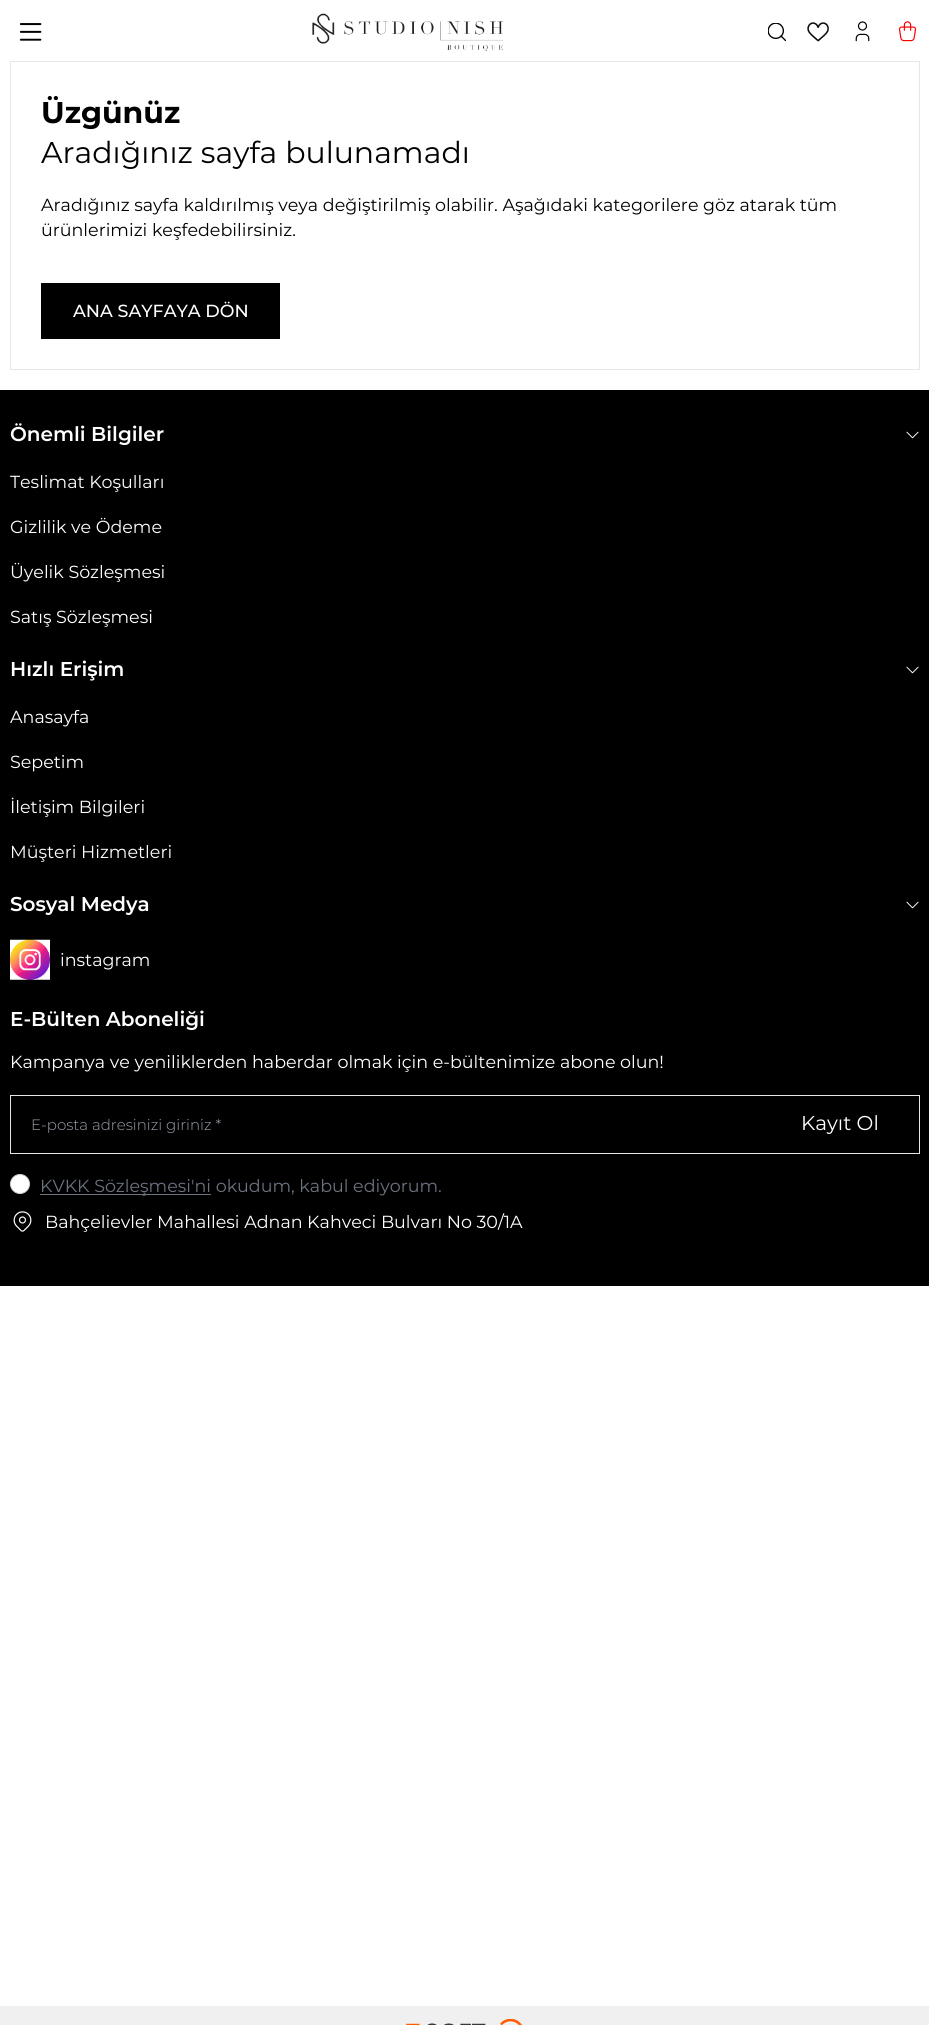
import math
import cairo

surface = cairo.ImageSurface(cairo.FORMAT_RGB24, 929, 2025)
cr = cairo.Context(surface)
options = cairo.FontOptions()
options.set_hint_metrics(cairo.HINT_METRICS_OFF)
options.set_hint_style(cairo.HINT_STYLE_NONE)
cr.set_font_options(options)
cr.set_miter_limit(4)


def rgb(code):
    cr.set_source_rgb(*(v / 255 for v in bytes.fromhex(code[-6:])))


def image(path, x, y, w, h):
    cr.save()
    cr.set_source_surface(cairo.ImageSurface.create_from_png(path), x, y)
    cr.rectangle(x, y, w, h)
    cr.fill()
    cr.restore()


rgb("#ffffff")
cr.paint()
image("img/1.png", 19, 23, 23, 18)
image("img/2.png", 312, 13, 192, 38)
image("img/3.png", 768, 23, 18, 18)
image("img/4.png", 807, 22, 22, 20)
image("img/5.png", 855, 21, 15, 21)
image("img/6.png", 898, 21, 19, 21)
cr.rectangle(10.5, 61.5, 909, 308)
rgb("#e5e7eb")
cr.set_line_width(1)
cr.stroke()
rgb("#000000")
cr.rectangle(41, 283, 239, 56)
cr.fill()
cr.rectangle(0, 390, 929, 896)
cr.fill()
image("img/7.png", 906, 431, 13, 8)
image("img/7.png", 906, 666, 13, 8)
image("img/7.png", 906, 901, 13, 8)
image("img/8.png", 10, 939, 40, 41)
cr.rectangle(10.5, 1095.5, 909, 58)
rgb("#e5e7eb")
cr.stroke()
rgb("#ffffff")
cr.arc(20, 1184, 9.5, 0, 2 * math.pi)
cr.fill_preserve()
rgb("#d1d5db")
cr.stroke()
rgb("#6b7280")
cr.rectangle(40, 1194, 171, 1)
cr.fill()
image("img/9.png", 13, 1211, 19, 21)
rgb("#f0f0f0")
cr.rectangle(0, 2006, 929, 19)
cr.fill()
image("img/10.png", 406, 2019, 116, 6)
cr.select_font_face("Montserrat", cairo.FONT_SLANT_NORMAL, cairo.FONT_WEIGHT_BOLD)
cr.set_font_size(30)
rgb("#000000")
cr.move_to(41, 123)
cr.show_text("Üzgünüz")
cr.select_font_face("Montserrat")
cr.move_to(41, 163)
cr.show_text("Aradığınız sayfa bulunamadı")
cr.set_font_size(17.5)
cr.move_to(41, 211)
cr.show_text("Aradığınız sayfa kaldırılmış veya değiştirilmiş olabilir. Aşağıdaki kategorilere göz atarak tüm")
cr.move_to(41, 236)
cr.show_text("ürünlerimizi keşfedebilirsiniz.")
cr.select_font_face("Montserrat Medium")
rgb("#ffffff")
cr.move_to(73, 317)
cr.show_text("ANA SAYFAYA DÖN")
cr.select_font_face("Montserrat SemiBold")
cr.set_font_size(20)
cr.move_to(10, 441)
cr.show_text("Önemli Bilgiler")
cr.select_font_face("Montserrat")
cr.set_font_size(17.5)
for x, y, s in [
    (10, 488, "Teslimat Koşulları"),
    (10, 533, "Gizlilik ve Ödeme"),
    (10, 578, "Üyelik Sözleşmesi"),
    (10, 623, "Satış Sözleşmesi"),
]:
    cr.move_to(x, y)
    cr.show_text(s)
cr.select_font_face("Montserrat SemiBold")
cr.set_font_size(20)
cr.move_to(10, 676)
cr.show_text("Hızlı Erişim")
cr.select_font_face("Montserrat")
cr.set_font_size(17.5)
for x, y, s in [
    (10, 723, "Anasayfa"),
    (10, 768, "Sepetim"),
    (10, 813, "İletişim Bilgileri"),
    (10, 858, "Müşteri Hizmetleri"),
]:
    cr.move_to(x, y)
    cr.show_text(s)
cr.select_font_face("Montserrat SemiBold")
cr.set_font_size(20)
cr.move_to(10, 911)
cr.show_text("Sosyal Medya")
cr.select_font_face("Montserrat")
cr.set_font_size(17.5)
cr.move_to(60, 966)
cr.show_text("instagram")
cr.select_font_face("Montserrat SemiBold")
cr.set_font_size(20)
cr.move_to(10, 1026)
cr.show_text("E-Bülten Aboneliği")
cr.select_font_face("Montserrat")
cr.set_font_size(17.5)
cr.move_to(10, 1068)
cr.show_text("Kampanya ve yeniliklerden haberdar olmak için e-bültenimize abone olun!")
cr.select_font_face("Montserrat Light")
cr.set_font_size(15)
rgb("#9ca3af")
cr.move_to(31, 1130)
cr.show_text("E-posta adresinizi giriniz *")
cr.select_font_face("Montserrat")
cr.set_font_size(20)
rgb("#ffffff")
cr.move_to(801, 1130)
cr.show_text("Kayıt Ol")
cr.set_font_size(17.5)
rgb("#6b7280")
cr.move_to(40, 1192)
cr.show_text("KVKK Sözleşmesi'ni okudum, kabul ediyorum.")
rgb("#ffffff")
cr.move_to(45, 1228)
cr.show_text("Bahçelievler Mahallesi Adnan Kahveci Bulvarı No 30/1A")
surface.write_to_png("page.png")
